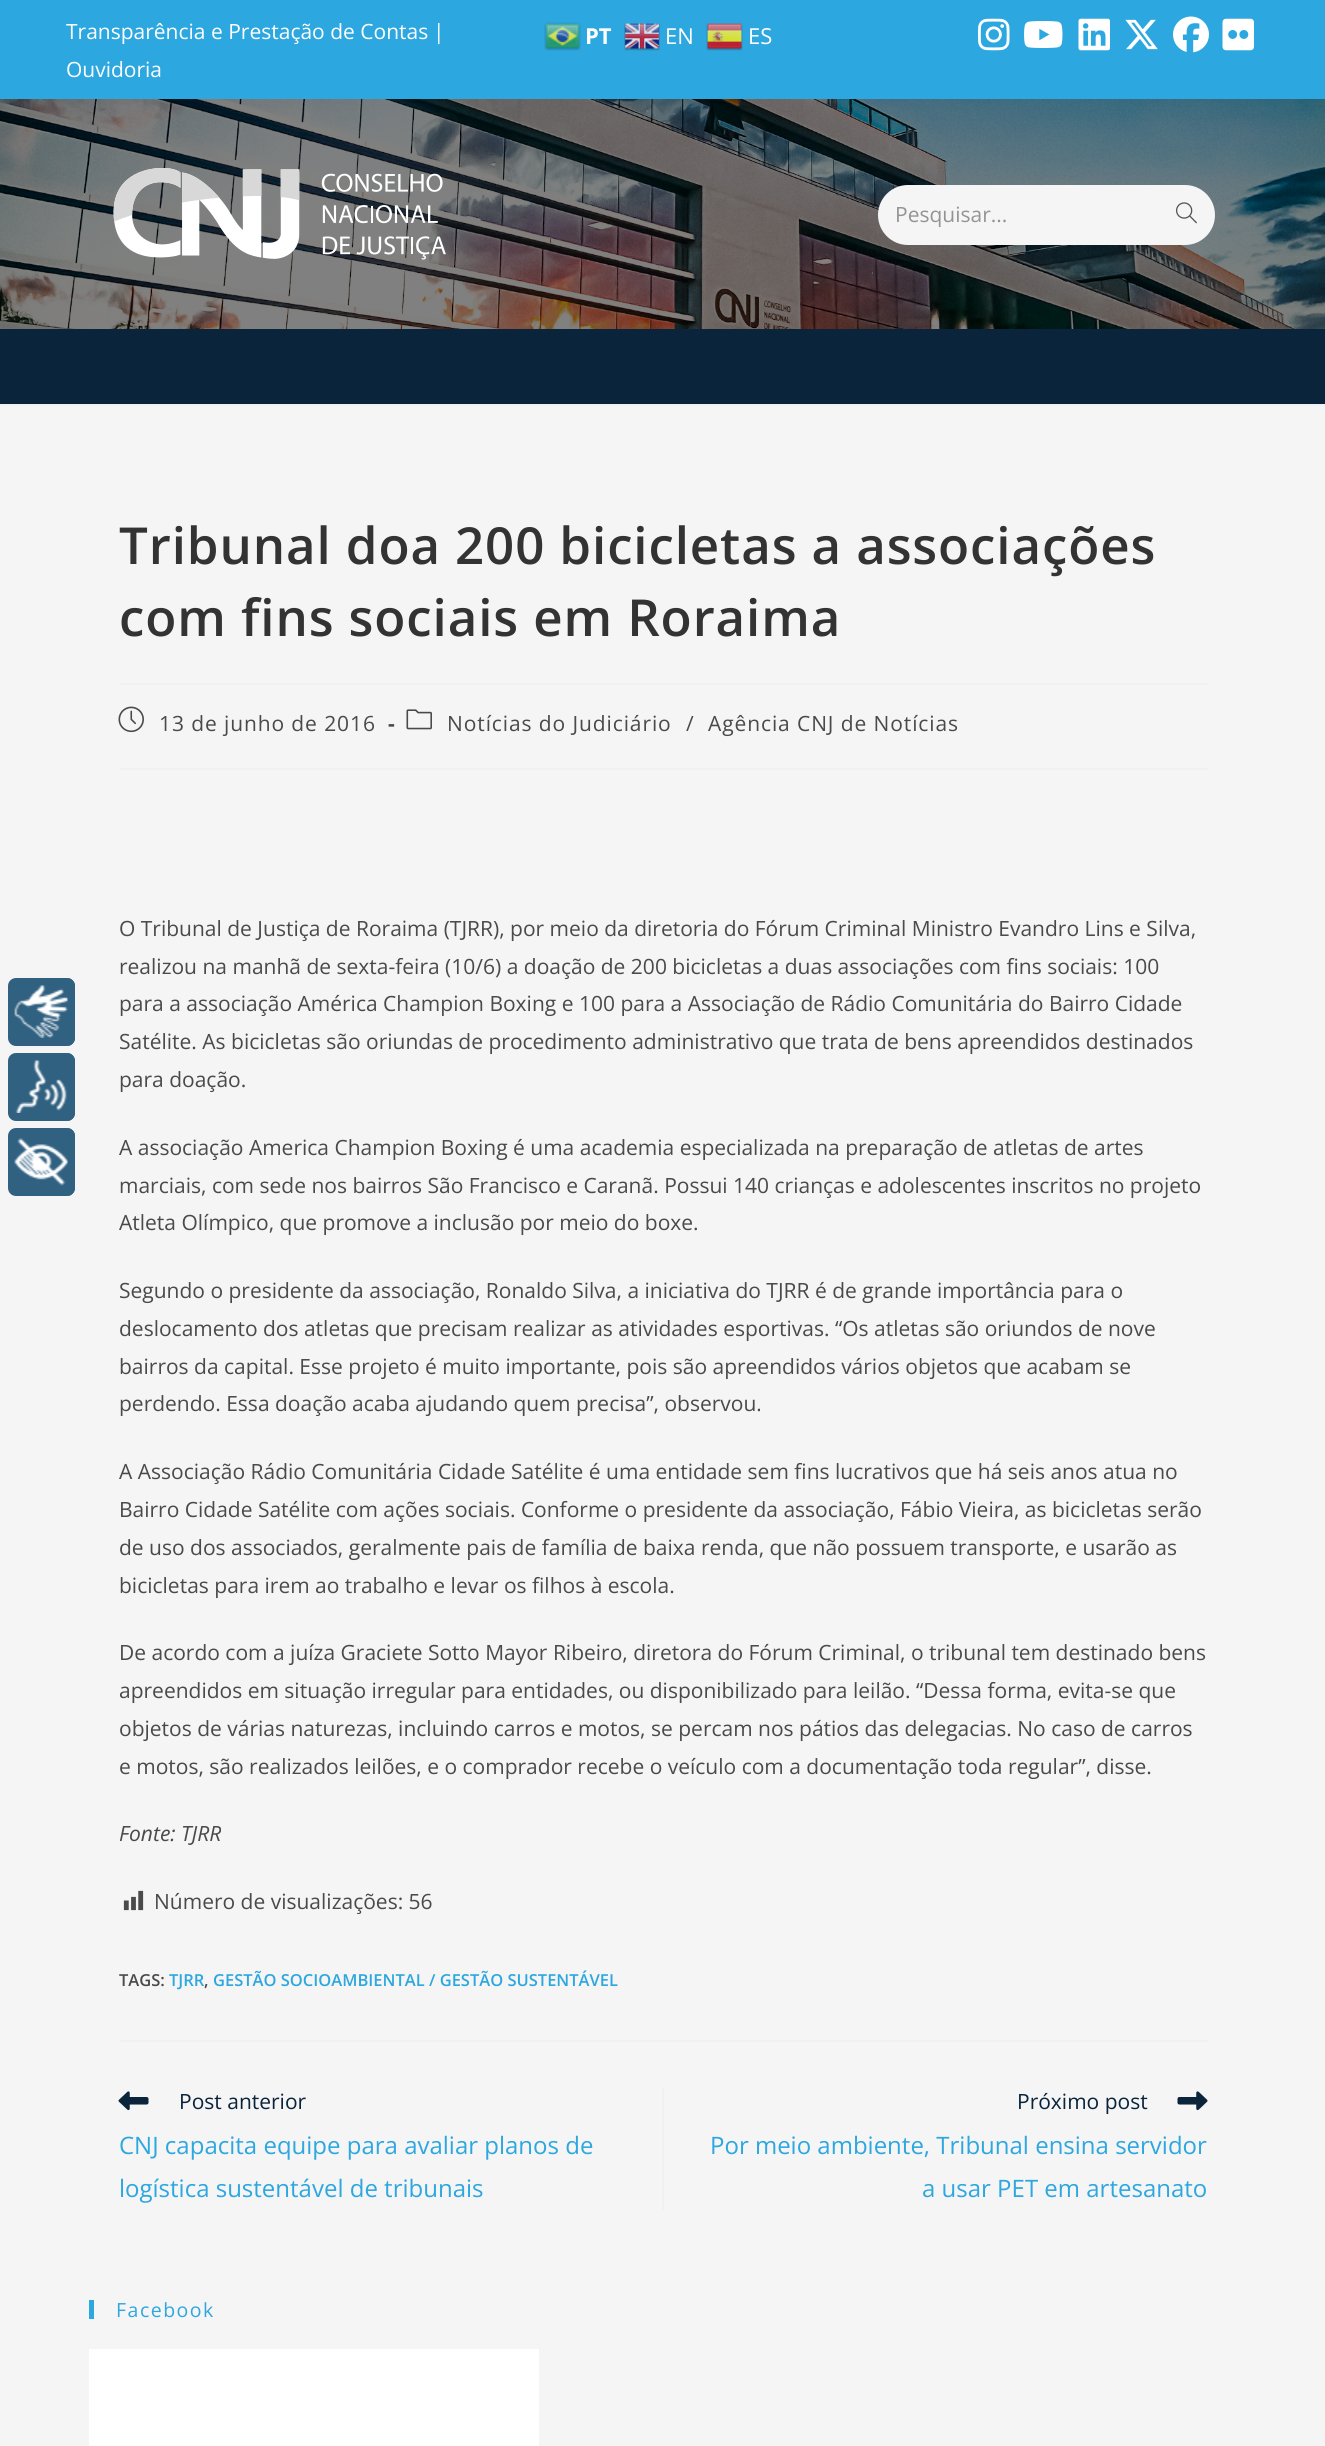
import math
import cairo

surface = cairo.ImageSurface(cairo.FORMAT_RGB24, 1325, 2446)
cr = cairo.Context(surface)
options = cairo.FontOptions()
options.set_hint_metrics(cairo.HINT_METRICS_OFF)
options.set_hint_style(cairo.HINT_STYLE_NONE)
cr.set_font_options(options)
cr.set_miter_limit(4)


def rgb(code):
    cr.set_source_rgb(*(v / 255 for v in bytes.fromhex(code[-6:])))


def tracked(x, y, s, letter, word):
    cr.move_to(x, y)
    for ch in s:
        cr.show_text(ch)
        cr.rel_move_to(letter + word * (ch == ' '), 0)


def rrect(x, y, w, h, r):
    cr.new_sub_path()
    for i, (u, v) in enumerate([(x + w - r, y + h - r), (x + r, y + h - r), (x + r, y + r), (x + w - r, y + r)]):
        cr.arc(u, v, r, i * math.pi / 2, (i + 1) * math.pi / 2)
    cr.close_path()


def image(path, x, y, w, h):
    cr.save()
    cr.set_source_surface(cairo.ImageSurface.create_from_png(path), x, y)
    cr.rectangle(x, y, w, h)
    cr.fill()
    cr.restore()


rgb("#f5f5f5")
cr.paint()
rgb("#316181")
rrect(8, 978, 67, 68, 8)
cr.fill()
image("img/1.png", 14, 985, 54, 53)
cr.save()
rrect(8, 978, 67, 68, 8)
cr.clip()
cr.rectangle(68, 978, 7, 68)
cr.fill()
cr.restore()
rrect(8, 1053, 67, 68, 8)
cr.fill()
image("img/2.png", 15, 1060, 52, 53)
cr.save()
rrect(8, 1053, 67, 68, 8)
cr.clip()
cr.rectangle(68, 1053, 7, 68)
cr.fill()
cr.restore()
rrect(8, 1128, 67, 68, 8)
cr.fill()
image("img/3.png", 14, 1138, 54, 48)
cr.save()
rrect(8, 1128, 67, 68, 8)
cr.clip()
cr.rectangle(68, 1128, 7, 68)
cr.fill()
cr.restore()
rgb("#2ca7df")
cr.rectangle(0, 0, 1325, 99)
cr.fill()
image("img/4.png", 544, 22, 37, 29)
image("img/5.png", 624, 23, 36, 28)
image("img/6.png", 706, 23, 37, 28)
image("img/7.png", 978, 18, 32, 33)
image("img/8.png", 1024, 21, 39, 27)
image("img/9.png", 1078, 18, 32, 33)
image("img/10.png", 1125, 19, 33, 31)
image("img/11.png", 1173, 16, 36, 37)
image("img/12.png", 1222, 18, 32, 33)
image("img/13.png", 0, 99, 1325, 230)
rgb("#f1f1f1")
cr.rectangle(0, 404, 1325, 2)
cr.fill()
image("img/14.png", 113, 168, 333, 92)
rgb("#f5f5f5")
rrect(878, 185, 337, 60, 30)
cr.fill()
image("img/15.png", 1175, 202, 22, 22)
for x, y, w, h, color in [
    (0, 329, 1325, 75, "#0a243b"),
    (119, 683, 1089, 2, "#f1f1f1"),
    (119, 768, 1089, 2, "#f1f1f1"),
]:
    rgb(color)
    cr.rectangle(x, y, w, h)
    cr.fill()
image("img/16.png", 118, 706, 26, 27)
image("img/17.png", 406, 709, 26, 21)
image("img/18.png", 123, 1890, 21, 21)
cr.rectangle(119, 2040, 1089, 2)
cr.fill()
cr.rectangle(662, 2087, 2, 123)
cr.fill()
image("img/19.png", 118, 2091, 31, 20)
image("img/20.png", 1177, 2091, 31, 20)
rgb("#2ca7df")
cr.rectangle(89, 2300, 5, 19)
cr.fill()
rgb("#ffffff")
cr.rectangle(89, 2349, 450, 97)
cr.fill()
cr.select_font_face("Open Sans")
cr.set_font_size(21)
for x, y, s in [
    (66, 39, "Transparência e Prestação de Contas"),
    (433, 39, "|"),
    (66, 77, "Ouvidoria"),
]:
    cr.move_to(x, y)
    cr.show_text(s)
cr.select_font_face("Open Sans", cairo.FONT_SLANT_NORMAL, cairo.FONT_WEIGHT_BOLD)
cr.set_font_size(22)
cr.move_to(585, 44)
cr.show_text("PT")
cr.select_font_face("Open Sans")
cr.move_to(665, 44)
cr.show_text("EN")
cr.move_to(748, 44)
cr.show_text("ES")
cr.set_font_size(21)
rgb("#949494")
cr.move_to(895, 222)
cr.show_text("Pesquisar...")
cr.select_font_face("Open Sans SemiBold")
cr.set_font_size(51)
rgb("#333333")
tracked(119, 564, "Tribunal doa 200 bicicletas a associações", 0.9, 0)
tracked(119, 636, "com fins sociais em Roraima", 0.9, 0)
cr.select_font_face("Open Sans")
cr.set_font_size(21)
rgb("#4a4a4a")
tracked(159, 731, "13 de junho de 2016", 0.9, 0)
cr.select_font_face("Open Sans", cairo.FONT_SLANT_NORMAL, cairo.FONT_WEIGHT_BOLD)
tracked(388, 731, "-", 0.9, 0)
cr.select_font_face("Open Sans")
for x, y, s in [
    (447, 731, "Notícias do Judiciário"),
    (686, 731, "/"),
    (708, 731, "Agência CNJ de Notícias"),
]:
    tracked(x, y, s, 0.9, 0)
for x, y, s in [
    (119, 936, "O Tribunal de Justiça de Roraima (TJRR), por meio da diretoria do Fórum Criminal Ministro Evandro Lins e Silva,"),
    (119, 974, "realizou na manhã de sexta-feira (10/6) a doação de 200 bicicletas a duas associações com fins sociais: 100"),
    (119, 1011, "para a associação América Champion Boxing e 100 para a Associação de Rádio Comunitária do Bairro Cidade"),
    (119, 1049, "Satélite. As bicicletas são oriundas de procedimento administrativo que trata de bens apreendidos destinados"),
    (119, 1087, "para doação."),
    (119, 1155, "A associação America Champion Boxing é uma academia especializada na preparação de atletas de artes"),
    (119, 1193, "marciais, com sede nos bairros São Francisco e Caranã. Possui 140 crianças e adolescentes inscritos no projeto"),
    (119, 1230, "Atleta Olímpico, que promove a inclusão por meio do boxe."),
    (119, 1298, "Segundo o presidente da associação, Ronaldo Silva, a iniciativa do TJRR é de grande importância para o"),
    (119, 1336, "deslocamento dos atletas que precisam realizar as atividades esportivas. “Os atletas são oriundos de nove"),
    (119, 1374, "bairros da capital. Esse projeto é muito importante, pois são apreendidos vários objetos que acabam se"),
    (119, 1411, "perdendo. Essa doação acaba ajudando quem precisa”, observou."),
    (119, 1479, "A Associação Rádio Comunitária Cidade Satélite é uma entidade sem fins lucrativos que há seis anos atua no"),
    (119, 1517, "Bairro Cidade Satélite com ações sociais. Conforme o presidente da associação, Fábio Vieira, as bicicletas serão"),
    (119, 1555, "de uso dos associados, geralmente pais de família de baixa renda, que não possuem transporte, e usarão as"),
    (119, 1593, "bicicletas para irem ao trabalho e levar os filhos à escola."),
    (119, 1660, "De acordo com a juíza Graciete Sotto Mayor Ribeiro, diretora do Fórum Criminal, o tribunal tem destinado bens"),
    (119, 1698, "apreendidos em situação irregular para entidades, ou disponibilizado para leilão. “Dessa forma, evita-se que"),
    (119, 1736, "objetos de várias naturezas, incluindo carros e motos, se percam nos pátios das delegacias. No caso de carros"),
    (119, 1774, "e motos, são realizados leilões, e o comprador recebe o veículo com a documentação toda regular”, disse."),
]:
    cr.move_to(x, y)
    cr.show_text(s)
cr.select_font_face("Open Sans", cairo.FONT_SLANT_ITALIC)
cr.move_to(119, 1841)
cr.show_text("Fonte: TJRR")
cr.select_font_face("Open Sans")
cr.move_to(154, 1909)
cr.show_text("Número de visualizações: 56")
cr.select_font_face("Open Sans SemiBold")
cr.set_font_size(16.5)
cr.move_to(119, 1986)
cr.show_text("TAGS:")
rgb("#2ca7df")
cr.move_to(169, 1986)
cr.show_text("TJRR")
rgb("#4a4a4a")
cr.move_to(204, 1986)
cr.show_text(",")
rgb("#2ca7df")
cr.move_to(213, 1986)
cr.show_text("GESTÃO SOCIOAMBIENTAL / GESTÃO SUSTENTÁVEL")
cr.select_font_face("Open Sans")
cr.set_font_size(21)
rgb("#0a243b")
cr.move_to(179, 2109)
cr.show_text("Post anterior")
cr.set_font_size(24)
rgb("#2ca7df")
cr.move_to(119, 2154)
cr.show_text("CNJ capacita equipe para avaliar planos de")
cr.move_to(119, 2197)
cr.show_text("logística sustentável de tribunais")
cr.set_font_size(21)
rgb("#0a243b")
cr.move_to(1017, 2109)
cr.show_text("Próximo post")
cr.set_font_size(24)
rgb("#2ca7df")
cr.move_to(710, 2154)
cr.show_text("Por meio ambiente, Tribunal ensina servidor")
cr.move_to(922, 2197)
cr.show_text("a usar PET em artesanato")
cr.set_font_size(19.5)
tracked(116, 2317, "Facebook", 1.5, 0)
surface.write_to_png("page.png")
